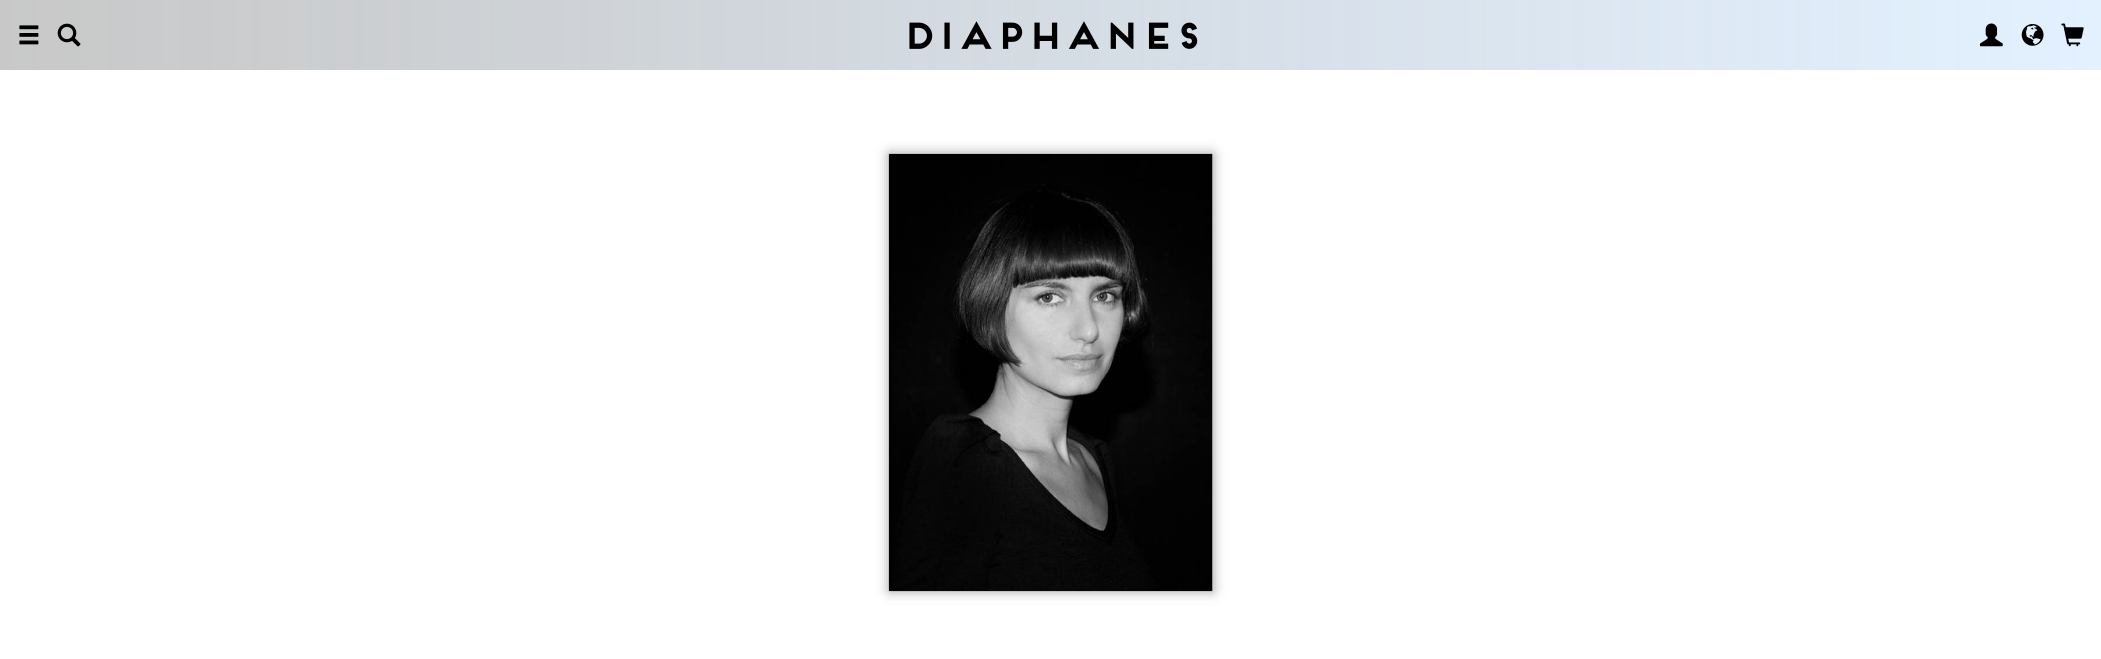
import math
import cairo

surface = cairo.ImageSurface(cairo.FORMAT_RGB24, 2101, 659)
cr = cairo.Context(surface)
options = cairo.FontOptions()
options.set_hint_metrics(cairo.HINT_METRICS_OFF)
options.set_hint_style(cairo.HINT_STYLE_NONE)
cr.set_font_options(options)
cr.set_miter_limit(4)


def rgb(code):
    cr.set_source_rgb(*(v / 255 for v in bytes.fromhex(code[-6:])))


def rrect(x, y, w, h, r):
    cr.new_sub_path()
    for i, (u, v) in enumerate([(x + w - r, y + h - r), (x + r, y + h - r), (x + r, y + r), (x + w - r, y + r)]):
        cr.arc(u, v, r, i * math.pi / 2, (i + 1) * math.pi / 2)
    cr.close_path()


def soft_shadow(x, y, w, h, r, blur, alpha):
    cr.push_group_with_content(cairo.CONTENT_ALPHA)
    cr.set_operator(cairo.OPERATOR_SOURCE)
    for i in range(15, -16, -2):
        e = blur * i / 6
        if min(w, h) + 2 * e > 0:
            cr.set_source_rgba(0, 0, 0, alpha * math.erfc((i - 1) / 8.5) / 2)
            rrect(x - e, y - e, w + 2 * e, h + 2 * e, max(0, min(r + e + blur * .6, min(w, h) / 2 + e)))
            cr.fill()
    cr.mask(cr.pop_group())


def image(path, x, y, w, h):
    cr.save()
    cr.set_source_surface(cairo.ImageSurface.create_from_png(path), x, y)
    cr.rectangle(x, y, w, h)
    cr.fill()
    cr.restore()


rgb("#ffffff")
cr.paint()
gradient = cairo.LinearGradient(0, 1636, 2101, 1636)
gradient.add_color_stop_rgba(0, 0.784, 0.784, 0.784, 1)
gradient.add_color_stop_rgba(1, 0.918, 0.961, 1, 1)
cr.set_source(gradient)
cr.rectangle(37, 0, 2064, 70)
cr.fill()
gradient = cairo.LinearGradient(0, 35, 2101, 35)
gradient.add_color_stop_rgba(0, 0.784, 0.784, 0.784, 1)
gradient.add_color_stop_rgba(1, 0.875, 0.937, 1, 0.67)
cr.set_source(gradient)
cr.rectangle(0, 0, 2101, 70)
cr.fill()
image("img/1.png", 19, 25, 20, 20)
image("img/2.png", 57, 23, 24, 24)
image("img/3.png", 1980, 23, 23, 24)
image("img/4.png", 2021, 24, 23, 22)
image("img/5.png", 2061, 23, 23, 24)
rgb("#7c7c7c")
soft_shadow(889, 154, 324, 437, 0, 6, 0.75)
image("img/6.png", 888, 153, 325, 439)
rgb("#ffffff")
cr.rectangle(891, 601, 320, 2)
cr.fill()
cr.select_font_face("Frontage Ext", cairo.FONT_SLANT_NORMAL, cairo.FONT_WEIGHT_BOLD)
cr.set_font_size(35)
rgb("#000000")
cr.move_to(900, 48)
cr.show_text("Diaphanes")
surface.write_to_png("page.png")
